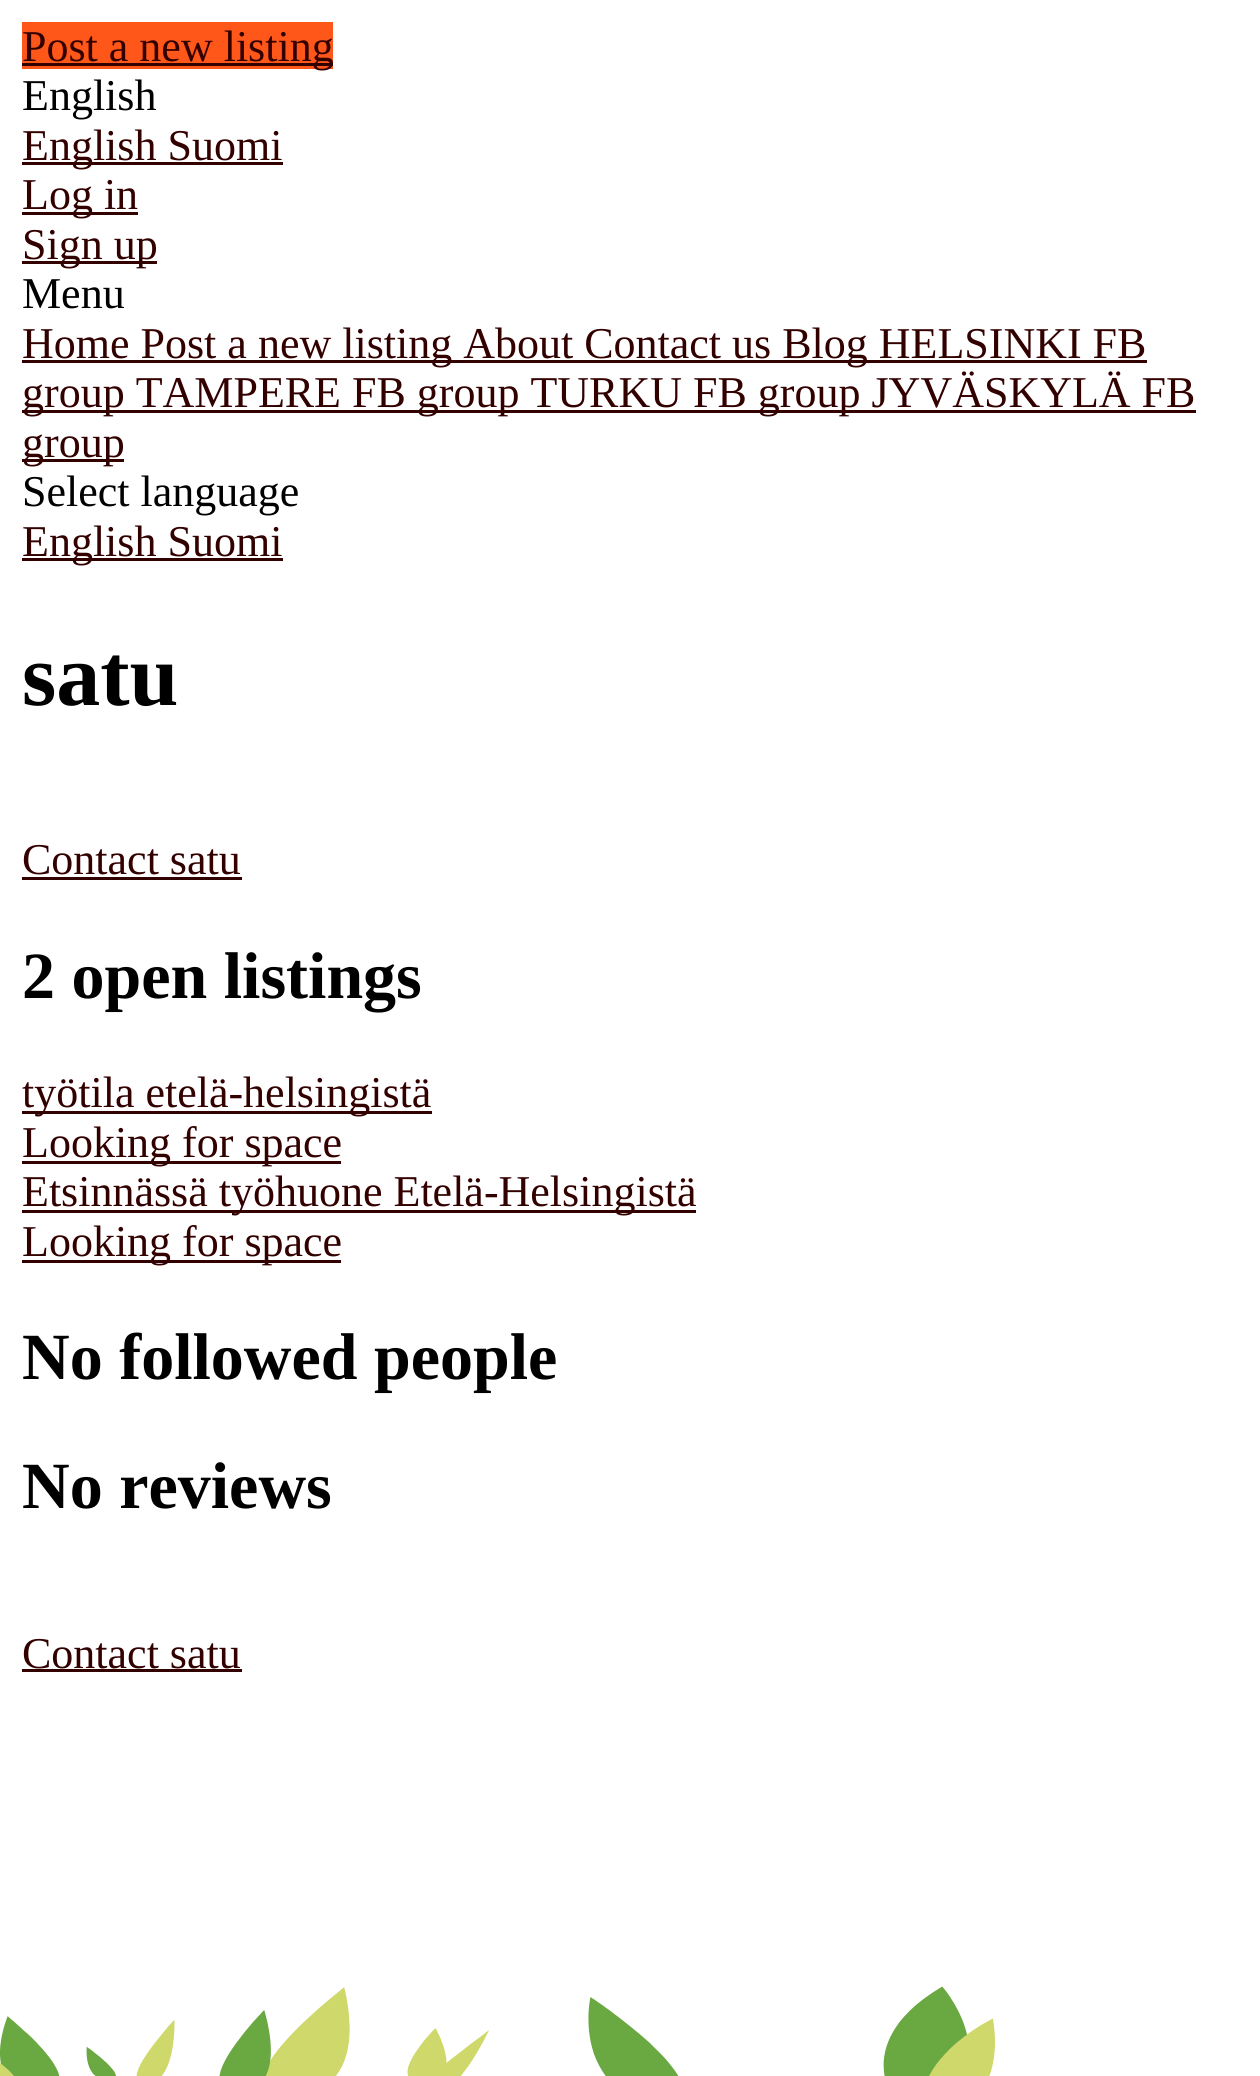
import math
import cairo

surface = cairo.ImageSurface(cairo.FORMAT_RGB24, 1260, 2076)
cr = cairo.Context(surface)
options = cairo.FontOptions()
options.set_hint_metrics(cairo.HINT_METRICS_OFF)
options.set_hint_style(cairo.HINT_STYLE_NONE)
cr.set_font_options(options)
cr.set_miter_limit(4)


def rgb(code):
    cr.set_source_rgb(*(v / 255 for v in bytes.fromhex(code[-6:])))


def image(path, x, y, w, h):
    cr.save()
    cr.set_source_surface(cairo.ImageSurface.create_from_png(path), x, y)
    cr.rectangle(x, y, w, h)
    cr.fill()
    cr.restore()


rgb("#ffffff")
cr.paint()
image("img/1.png", 0, 1986, 995, 90)
for x, y, w, h, color in [
    (22, 22, 311, 47, "#ff5619"),
    (22, 63, 311, 3, "#330000"),
    (22, 162, 261, 3, "#330000"),
    (22, 212, 116, 3, "#330000"),
    (22, 261, 135, 3, "#330000"),
    (22, 360, 1125, 3, "#330000"),
    (22, 410, 1174, 3, "#330000"),
    (22, 459, 102, 3, "#330000"),
    (22, 558, 261, 3, "#330000"),
    (22, 877, 220, 3, "#330000"),
    (22, 1111, 410, 3, "#330000"),
    (22, 1161, 319, 3, "#330000"),
    (22, 1210, 674, 3, "#330000"),
    (22, 1260, 319, 3, "#330000"),
    (22, 1669, 220, 3, "#330000"),
]:
    rgb(color)
    cr.rectangle(x, y, w, h)
    cr.fill()
cr.select_font_face("Liberation Serif")
cr.set_font_size(44)
cr.move_to(22, 61)
cr.show_text("Post a new listing")
rgb("#000000")
cr.move_to(22, 110)
cr.show_text("English")
rgb("#330000")
for x, y, s in [
    (22, 160, "English Suomi"),
    (22, 209, "Log in"),
    (22, 259, "Sign up"),
]:
    cr.move_to(x, y)
    cr.show_text(s)
rgb("#000000")
cr.move_to(22, 308)
cr.show_text("Menu")
rgb("#330000")
for x, y, s in [
    (22, 358, "Home Post a new listing About Contact us Blog HELSINKI FB"),
    (22, 407, "group TAMPERE FB group TURKU FB group JYVÄSKYLÄ FB"),
    (22, 457, "group"),
]:
    cr.move_to(x, y)
    cr.show_text(s)
rgb("#000000")
cr.move_to(22, 506)
cr.show_text("Select language")
rgb("#330000")
cr.move_to(22, 556)
cr.show_text("English Suomi")
cr.select_font_face("Liberation Serif", cairo.FONT_SLANT_NORMAL, cairo.FONT_WEIGHT_BOLD)
cr.set_font_size(88)
rgb("#000000")
cr.move_to(22, 705)
cr.show_text("satu")
cr.select_font_face("Liberation Serif")
cr.set_font_size(44)
rgb("#330000")
cr.move_to(22, 874)
cr.show_text("Contact satu")
cr.select_font_face("Liberation Serif", cairo.FONT_SLANT_NORMAL, cairo.FONT_WEIGHT_BOLD)
cr.set_font_size(66)
rgb("#000000")
cr.move_to(22, 998)
cr.show_text("2 open listings")
cr.select_font_face("Liberation Serif")
cr.set_font_size(44)
rgb("#330000")
for x, y, s in [
    (22, 1107, "työtila etelä-helsingistä"),
    (22, 1157, "Looking for space"),
    (22, 1206, "Etsinnässä työhuone Etelä-Helsingistä"),
    (22, 1256, "Looking for space"),
]:
    cr.move_to(x, y)
    cr.show_text(s)
cr.select_font_face("Liberation Serif", cairo.FONT_SLANT_NORMAL, cairo.FONT_WEIGHT_BOLD)
cr.set_font_size(66)
rgb("#000000")
cr.move_to(22, 1379)
cr.show_text("No followed people")
cr.move_to(22, 1508)
cr.show_text("No reviews")
cr.select_font_face("Liberation Serif")
cr.set_font_size(44)
rgb("#330000")
cr.move_to(22, 1668)
cr.show_text("Contact satu")
surface.write_to_png("page.png")
